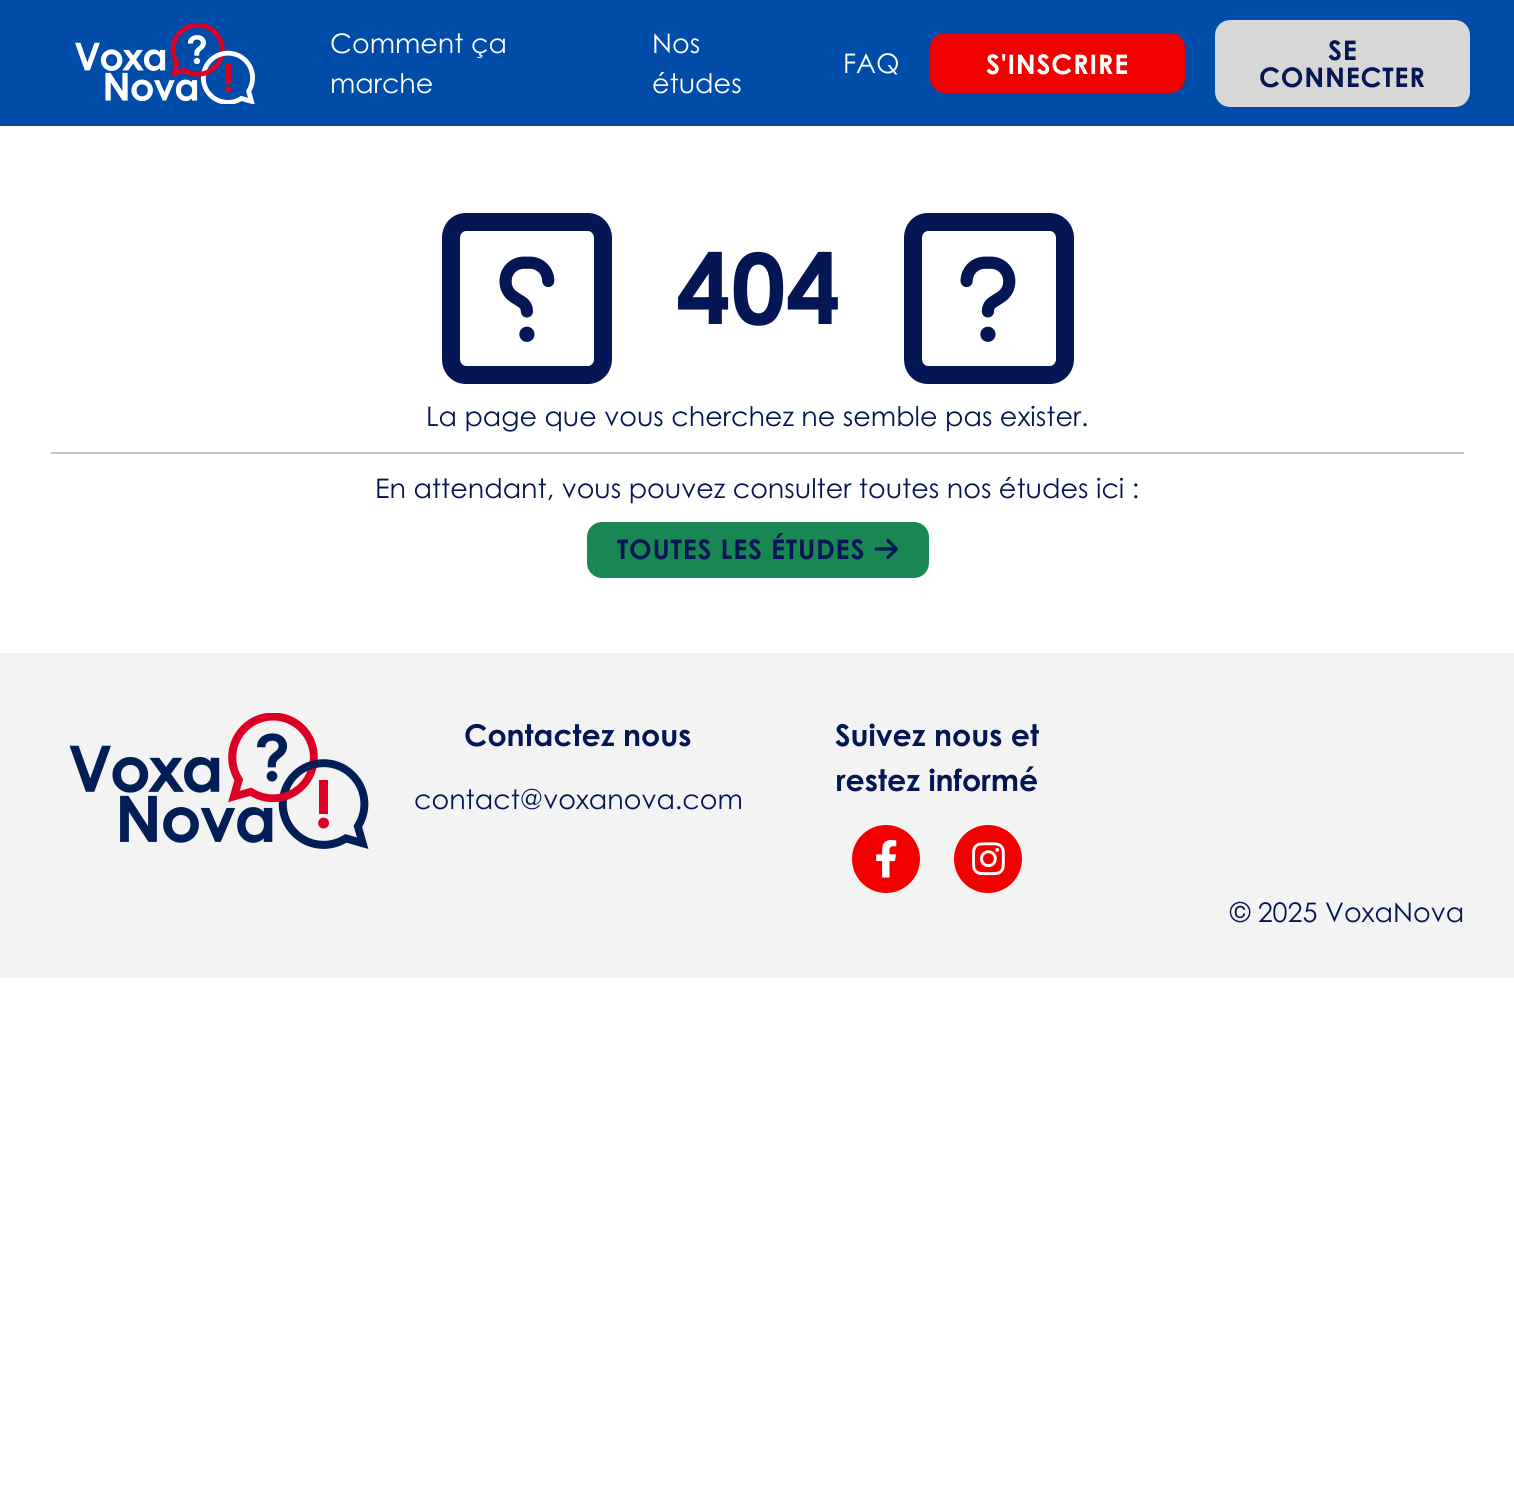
import math
import cairo

surface = cairo.ImageSurface(cairo.FORMAT_RGB24, 1514, 1492)
cr = cairo.Context(surface)
options = cairo.FontOptions()
options.set_hint_metrics(cairo.HINT_METRICS_OFF)
options.set_hint_style(cairo.HINT_STYLE_NONE)
cr.set_font_options(options)
cr.set_miter_limit(4)


def rgb(code):
    cr.set_source_rgb(*(v / 255 for v in bytes.fromhex(code[-6:])))


def tracked(x, y, s, letter, word):
    cr.move_to(x, y)
    for ch in s:
        cr.show_text(ch)
        cr.rel_move_to(letter + word * (ch == ' '), 0)


def rrect(x, y, w, h, r):
    cr.new_sub_path()
    for i, (u, v) in enumerate([(x + w - r, y + h - r), (x + r, y + h - r), (x + r, y + r), (x + w - r, y + r)]):
        cr.arc(u, v, r, i * math.pi / 2, (i + 1) * math.pi / 2)
    cr.close_path()


def image(path, x, y, w, h):
    cr.save()
    cr.set_source_surface(cairo.ImageSurface.create_from_png(path), x, y)
    cr.rectangle(x, y, w, h)
    cr.fill()
    cr.restore()


rgb("#ffffff")
cr.paint()
rgb("#004ca9")
cr.rectangle(0, 0, 1514, 126)
cr.fill()
image("img/1.png", 75, 23, 180, 81)
rgb("#f20000")
rrect(931, 34, 253, 58, 14)
cr.fill_preserve()
cr.stroke()
rgb("#d7d7d7")
rrect(1216, 21, 253, 85, 14)
cr.fill_preserve()
cr.stroke()
rgb("#051655")
cr.new_path()
cr.move_to(588, 231)
cr.curve_to(591, 231, 594, 234, 594, 238)
cr.line_to(594, 359)
cr.curve_to(594, 363, 591, 366, 588, 366)
cr.line_to(466, 366)
cr.curve_to(463, 366, 460, 363, 460, 359)
cr.line_to(460, 238)
cr.curve_to(460, 234, 463, 231, 466, 231)
cr.close_path()
cr.move_to(466, 213)
cr.curve_to(452, 213, 442, 224, 442, 238)
cr.line_to(442, 359)
cr.curve_to(442, 373, 452, 384, 466, 384)
cr.line_to(588, 384)
cr.curve_to(601, 384, 612, 373, 612, 359)
cr.line_to(612, 238)
cr.curve_to(612, 224, 601, 213, 588, 213)
cr.close_path()
cr.fill()
image("img/2.png", 499, 256, 56, 86)
cr.new_path()
cr.move_to(1050, 231)
cr.curve_to(1053, 231, 1056, 234, 1056, 238)
cr.line_to(1056, 359)
cr.curve_to(1056, 363, 1053, 366, 1050, 366)
cr.line_to(928, 366)
cr.curve_to(925, 366, 922, 363, 922, 359)
cr.line_to(922, 238)
cr.curve_to(922, 234, 925, 231, 928, 231)
cr.close_path()
cr.move_to(928, 213)
cr.curve_to(914, 213, 904, 224, 904, 238)
cr.line_to(904, 359)
cr.curve_to(904, 373, 914, 384, 928, 384)
cr.line_to(1050, 384)
cr.curve_to(1063, 384, 1074, 373, 1074, 359)
cr.line_to(1074, 238)
cr.curve_to(1074, 224, 1063, 213, 1050, 213)
cr.close_path()
cr.fill()
image("img/3.png", 960, 256, 56, 86)
rgb("#c1c5d5")
cr.rectangle(51, 452, 1413, 2)
cr.fill()
rgb("#198754")
rrect(588, 523, 340, 54, 14)
cr.fill_preserve()
cr.stroke()
image("img/4.png", 874, 538, 25, 22)
rgb("#f4f3f3")
cr.rectangle(0, 653, 1514, 325)
cr.fill()
image("img/5.png", 69, 713, 300, 136)
rgb("#f20000")
cr.arc(886, 859, 33, 0, 2 * math.pi)
cr.fill_preserve()
cr.stroke()
image("img/6.png", 876, 840, 21, 38)
cr.arc(988, 859, 33, 0, 2 * math.pi)
cr.fill_preserve()
cr.stroke()
image("img/7.png", 972, 842, 33, 34)
cr.select_font_face("Century Gothic")
cr.set_font_size(27)
rgb("#ffffff")
for x, y, s in [
    (330, 53, "Comment ça"),
    (330, 93, "marche"),
    (652, 53, "Nos"),
    (652, 93, "études"),
    (843, 73, "FAQ"),
]:
    cr.move_to(x, y)
    cr.show_text(s)
cr.select_font_face("Century Gothic", cairo.FONT_SLANT_NORMAL, cairo.FONT_WEIGHT_BOLD)
tracked(986, 74, "S'INSCRIRE", 0.75, 0)
rgb("#051655")
tracked(1328, 60, "SE", 0.75, 0)
tracked(1259, 87, "CONNECTER", 0.75, 0)
cr.set_font_size(98)
cr.move_to(676, 324)
cr.show_text("404")
cr.select_font_face("Century Gothic")
cr.set_font_size(27)
cr.move_to(426, 426)
cr.show_text("La page que vous cherchez ne semble pas exister.")
cr.move_to(375, 498)
cr.show_text("En attendant, vous pouvez consulter toutes nos études ici :")
cr.select_font_face("Century Gothic", cairo.FONT_SLANT_NORMAL, cairo.FONT_WEIGHT_BOLD)
tracked(617, 559, "TOUTES LES ÉTUDES", 0.75, 0)
cr.set_font_size(30)
cr.move_to(464, 746)
cr.show_text("Contactez nous")
cr.select_font_face("Century Gothic")
cr.set_font_size(27)
cr.move_to(414, 809)
cr.show_text("contact@voxanova.com")
cr.select_font_face("Century Gothic", cairo.FONT_SLANT_NORMAL, cairo.FONT_WEIGHT_BOLD)
cr.set_font_size(30)
cr.move_to(835, 746)
cr.show_text("Suivez nous et")
cr.move_to(836, 791)
cr.show_text("restez informé")
cr.select_font_face("Century Gothic")
cr.set_font_size(27)
cr.move_to(1230, 922)
cr.show_text("© 2025 VoxaNova")
surface.write_to_png("page.png")
